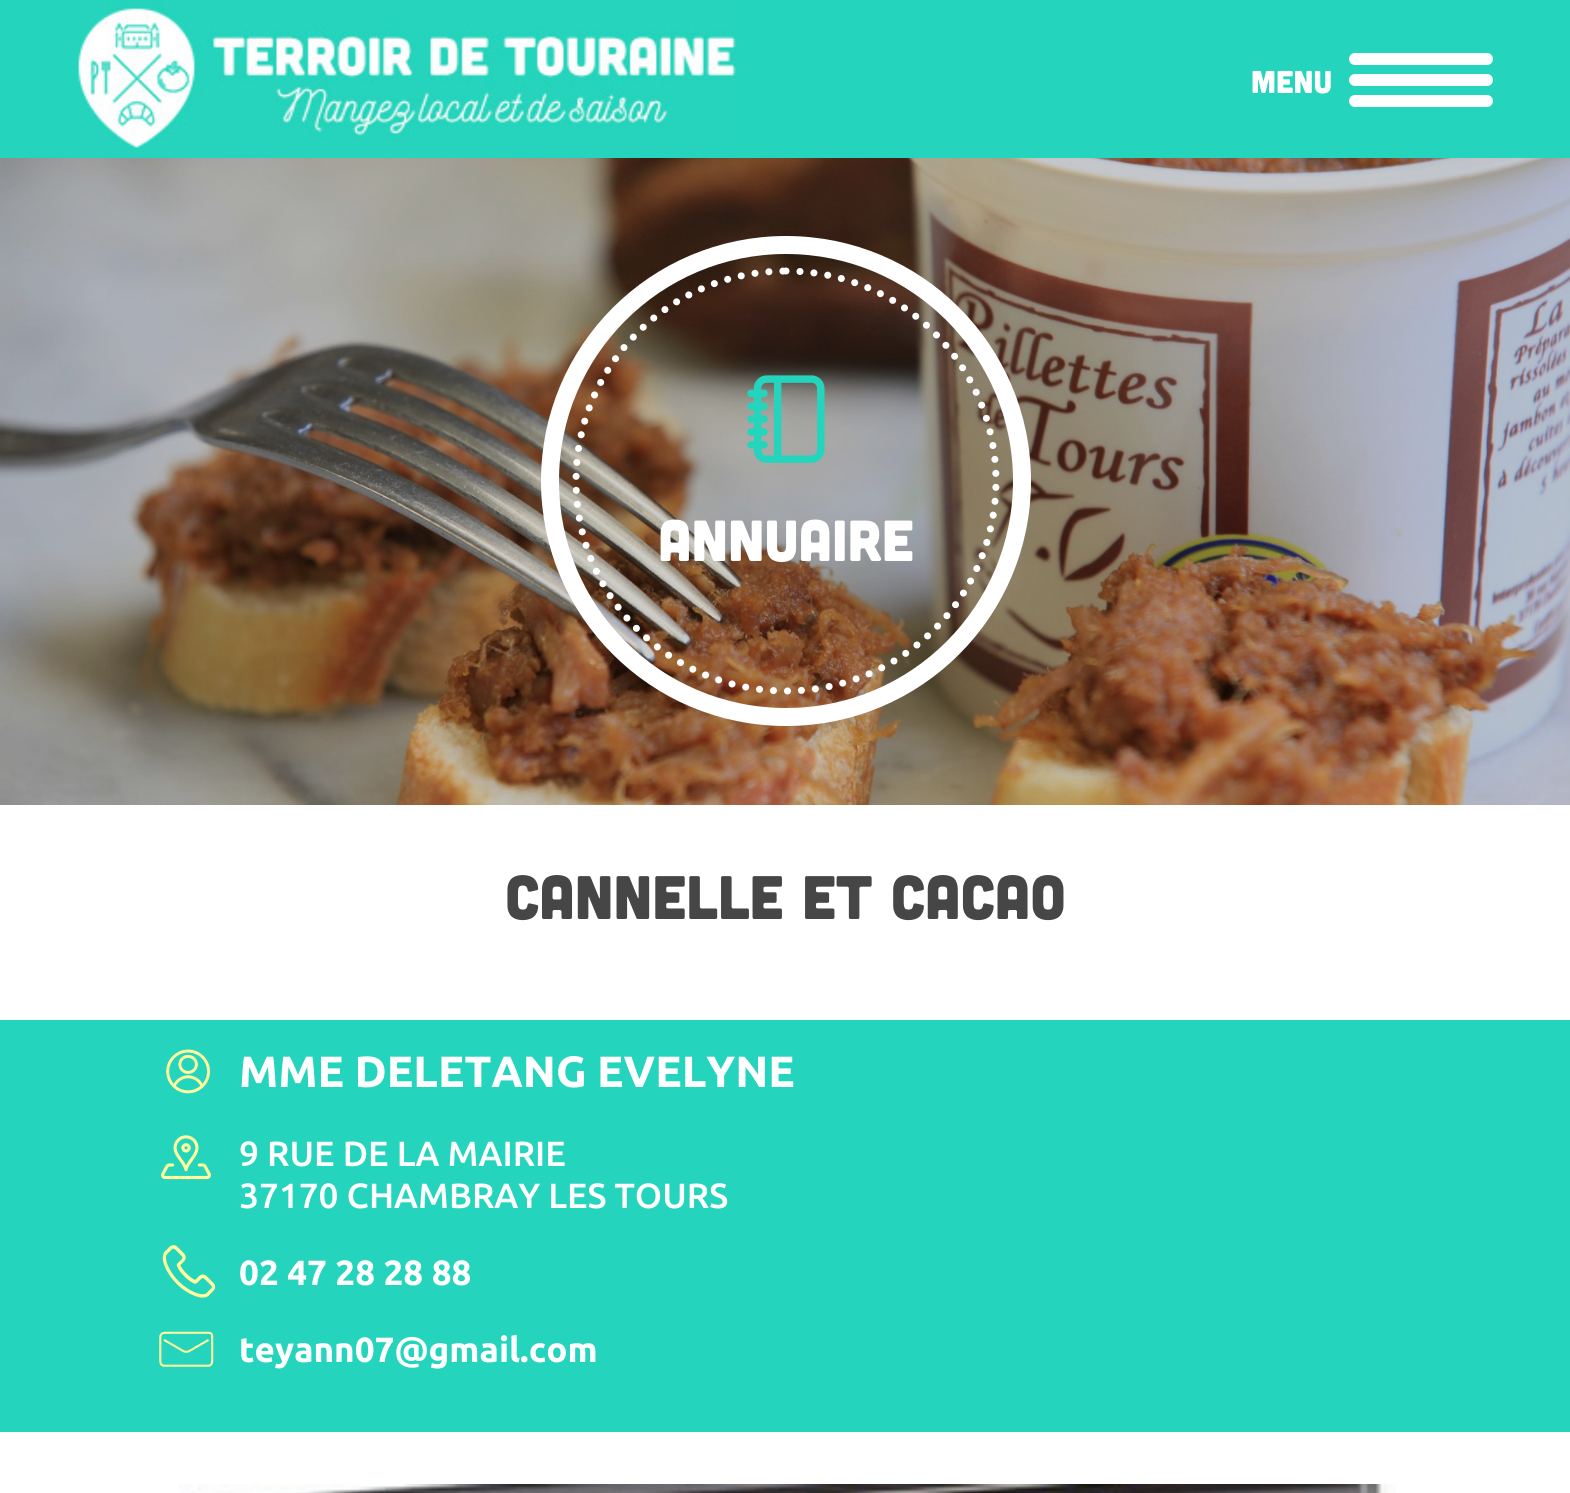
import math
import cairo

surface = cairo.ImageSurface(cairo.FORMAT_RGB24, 1570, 1493)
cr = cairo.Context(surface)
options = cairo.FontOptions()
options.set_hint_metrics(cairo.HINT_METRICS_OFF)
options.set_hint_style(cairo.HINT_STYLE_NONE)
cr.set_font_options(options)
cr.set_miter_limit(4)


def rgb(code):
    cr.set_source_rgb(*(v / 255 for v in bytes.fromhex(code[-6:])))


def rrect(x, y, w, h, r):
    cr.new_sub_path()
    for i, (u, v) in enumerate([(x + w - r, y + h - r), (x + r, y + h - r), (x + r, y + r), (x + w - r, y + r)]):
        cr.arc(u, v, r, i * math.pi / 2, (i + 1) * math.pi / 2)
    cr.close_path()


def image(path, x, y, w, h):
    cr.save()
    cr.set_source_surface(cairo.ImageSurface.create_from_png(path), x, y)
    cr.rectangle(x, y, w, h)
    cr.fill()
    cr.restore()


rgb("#ffffff")
cr.paint()
rgb("#25d4bc")
cr.rectangle(0, 0, 1570, 158)
cr.fill()
image("img/1.png", 78, 0, 659, 154)
rgb("#ffffff")
rrect(1349, 74, 144, 12, 6)
cr.fill()
rrect(1349, 53, 144, 12, 6)
cr.fill()
rrect(1349, 95, 144, 12, 6)
cr.fill()
image("img/2.png", 0, 158, 1570, 647)
cr.arc(786, 481, 236, 0, 2 * math.pi)
cr.set_line_width(18)
cr.stroke()
image("img/3.png", 747, 375, 78, 88)
cr.new_path()
cr.move_to(786, 271)
cr.curve_to(901.5, 271, 996, 365.5, 996, 481)
cr.curve_to(996, 597, 901.5, 691, 786, 691)
cr.curve_to(670, 691, 576, 597, 576, 481)
cr.curve_to(576, 365.5, 670, 271, 786, 271)
cr.close_path()
cr.set_line_width(7)
cr.set_line_cap(cairo.LINE_CAP_ROUND)
cr.set_dash([0, 14])
cr.stroke()
rgb("#25d4bc")
cr.rectangle(0, 1020, 1570, 412)
cr.fill()
image("img/4.png", 166, 1049, 44, 45)
image("img/5.png", 161, 1135, 50, 45)
image("img/6.png", 162, 1245, 54, 53)
image("img/7.png", 159, 1331, 55, 36)
image("img/8.png", 179, 1484, 1217, 9)
cr.select_font_face("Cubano")
cr.set_font_size(31.5)
rgb("#ffffff")
cr.move_to(1251, 93)
cr.show_text("MENU")
cr.set_font_size(57.75)
cr.move_to(658, 561)
cr.show_text("ANNUAIRE")
cr.set_font_size(61.25)
rgb("#464646")
cr.move_to(505, 919)
cr.show_text("CANNELLE ET CACAO")
cr.select_font_face("Ubuntu", cairo.FONT_SLANT_NORMAL, cairo.FONT_WEIGHT_BOLD)
cr.set_font_size(43.75)
rgb("#ffffff")
cr.move_to(239, 1087)
cr.show_text("MME DELETANG EVELYNE")
cr.select_font_face("Ubuntu Medium")
cr.set_font_size(35)
cr.move_to(239, 1166)
cr.show_text("9 RUE DE LA MAIRIE")
cr.move_to(239, 1208)
cr.show_text("37170 CHAMBRAY LES TOURS")
cr.select_font_face("Ubuntu", cairo.FONT_SLANT_NORMAL, cairo.FONT_WEIGHT_BOLD)
cr.move_to(239, 1285)
cr.show_text("02 47 28 28 88")
cr.move_to(239, 1362)
cr.show_text("teyann07@gmail.com")
surface.write_to_png("page.png")
